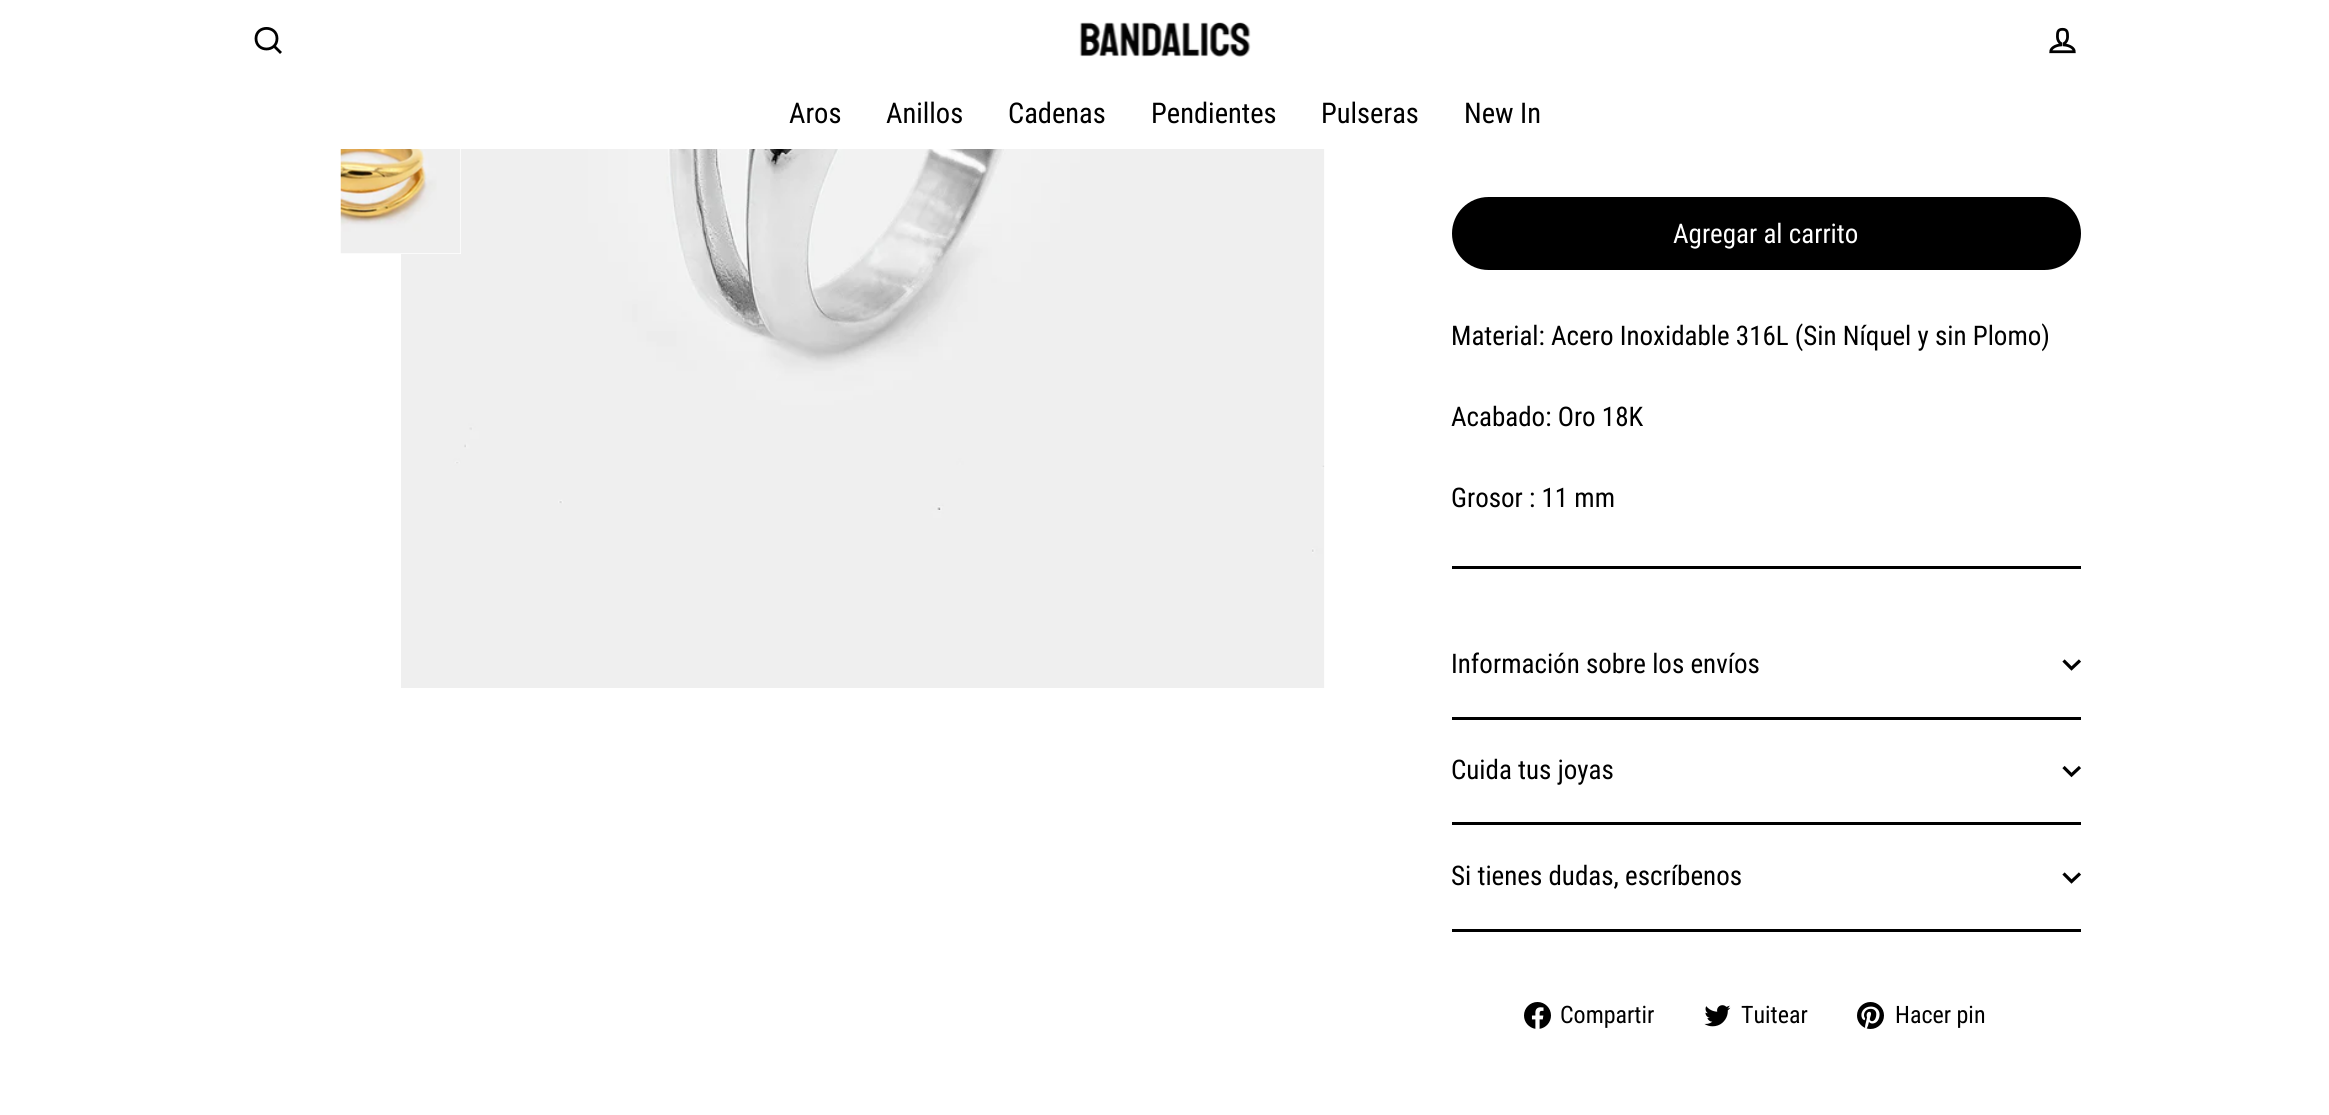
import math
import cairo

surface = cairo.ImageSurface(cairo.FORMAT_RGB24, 2329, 1115)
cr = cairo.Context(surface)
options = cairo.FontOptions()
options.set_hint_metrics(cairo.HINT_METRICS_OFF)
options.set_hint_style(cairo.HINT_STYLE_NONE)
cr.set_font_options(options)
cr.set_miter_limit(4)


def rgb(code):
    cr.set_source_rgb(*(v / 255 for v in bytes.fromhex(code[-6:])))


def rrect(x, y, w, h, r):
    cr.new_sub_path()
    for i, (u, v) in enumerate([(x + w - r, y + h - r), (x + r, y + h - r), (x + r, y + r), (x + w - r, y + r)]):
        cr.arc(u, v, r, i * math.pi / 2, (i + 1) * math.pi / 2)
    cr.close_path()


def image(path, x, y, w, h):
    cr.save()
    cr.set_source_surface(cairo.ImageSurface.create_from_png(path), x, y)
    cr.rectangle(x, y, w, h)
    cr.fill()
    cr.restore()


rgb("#ffffff")
cr.paint()
cr.new_path()
cr.move_to(277, 38.5)
cr.curve_to(277, 52.5, 256, 52.5, 256, 38.5)
cr.curve_to(256, 25, 277, 25, 277, 38.5)
cr.close_path()
cr.move_to(281, 53)
cr.line_to(274, 46)
rgb("#000000")
cr.set_line_width(2.8)
cr.stroke()
image("img/1.png", 1079, 22, 172, 35)
image("img/2.png", 2049, 27, 27, 27)
image("img/4.png", 401, 149, 924, 539)
gradient = cairo.LinearGradient(335, 135, 826, 222)
gradient.add_color_stop_rgba(0.4, 1, 1, 1, 1)
gradient.add_color_stop_rgba(0.63, 0.969, 0.969, 0.969, 1)
gradient.add_color_stop_rgba(0.79, 1, 1, 1, 1)
cr.set_source(gradient)
cr.rectangle(401, 149, 60, 105)
cr.fill()
image("img/3.png", 340, 149, 121, 105)
rgb("#000000")
rrect(1452, 197, 629, 73, 36.5)
cr.fill()
cr.rectangle(1452, 566, 629, 3)
cr.fill()
cr.rectangle(1452, 717, 629, 3)
cr.fill()
cr.new_path()
cr.move_to(2063.5, 660.5)
cr.line_to(2071.5, 668.5)
cr.line_to(2080, 660.5)
cr.set_line_width(3.2)
cr.stroke()
cr.rectangle(1452, 822, 629, 3)
cr.fill()
cr.new_path()
cr.move_to(2063.5, 767)
cr.line_to(2071.5, 775)
cr.line_to(2080, 767)
cr.stroke()
cr.rectangle(1452, 929, 629, 3)
cr.fill()
cr.new_path()
cr.move_to(2063.5, 873.5)
cr.line_to(2071.5, 881.5)
cr.line_to(2080, 873.5)
cr.stroke()
image("img/5.png", 1524, 1002, 27, 27)
image("img/6.png", 1704, 1005, 27, 22)
image("img/7.png", 1857, 1002, 27, 27)
cr.select_font_face("Roboto Condensed")
cr.set_font_size(28.5)
for x, y, s in [
    (789, 123, "Aros"),
    (886, 123, "Anillos"),
    (1008, 123, "Cadenas"),
    (1151, 123, "Pendientes"),
    (1321, 123, "Pulseras"),
    (1464, 123, "New In"),
]:
    cr.move_to(x, y)
    cr.show_text(s)
cr.set_font_size(27)
rgb("#ffffff")
cr.move_to(1673, 243)
cr.show_text("Agregar al carrito")
rgb("#000000")
for x, y, s in [
    (1451, 345, "Material: Acero Inoxidable 316L (Sin Níquel y sin Plomo)"),
    (1451, 426, "Acabado: Oro 18K"),
    (1451, 507, "Grosor : 11 mm"),
    (1451, 673, "Información sobre los envíos"),
    (1451, 779, "Cuida tus joyas"),
    (1451, 885, "Si tienes dudas, escríbenos"),
]:
    cr.move_to(x, y)
    cr.show_text(s)
cr.set_font_size(24)
for x, y, s in [
    (1560, 1023, "Compartir"),
    (1741, 1023, "Tuitear"),
    (1895, 1023, "Hacer pin"),
]:
    cr.move_to(x, y)
    cr.show_text(s)
surface.write_to_png("page.png")
